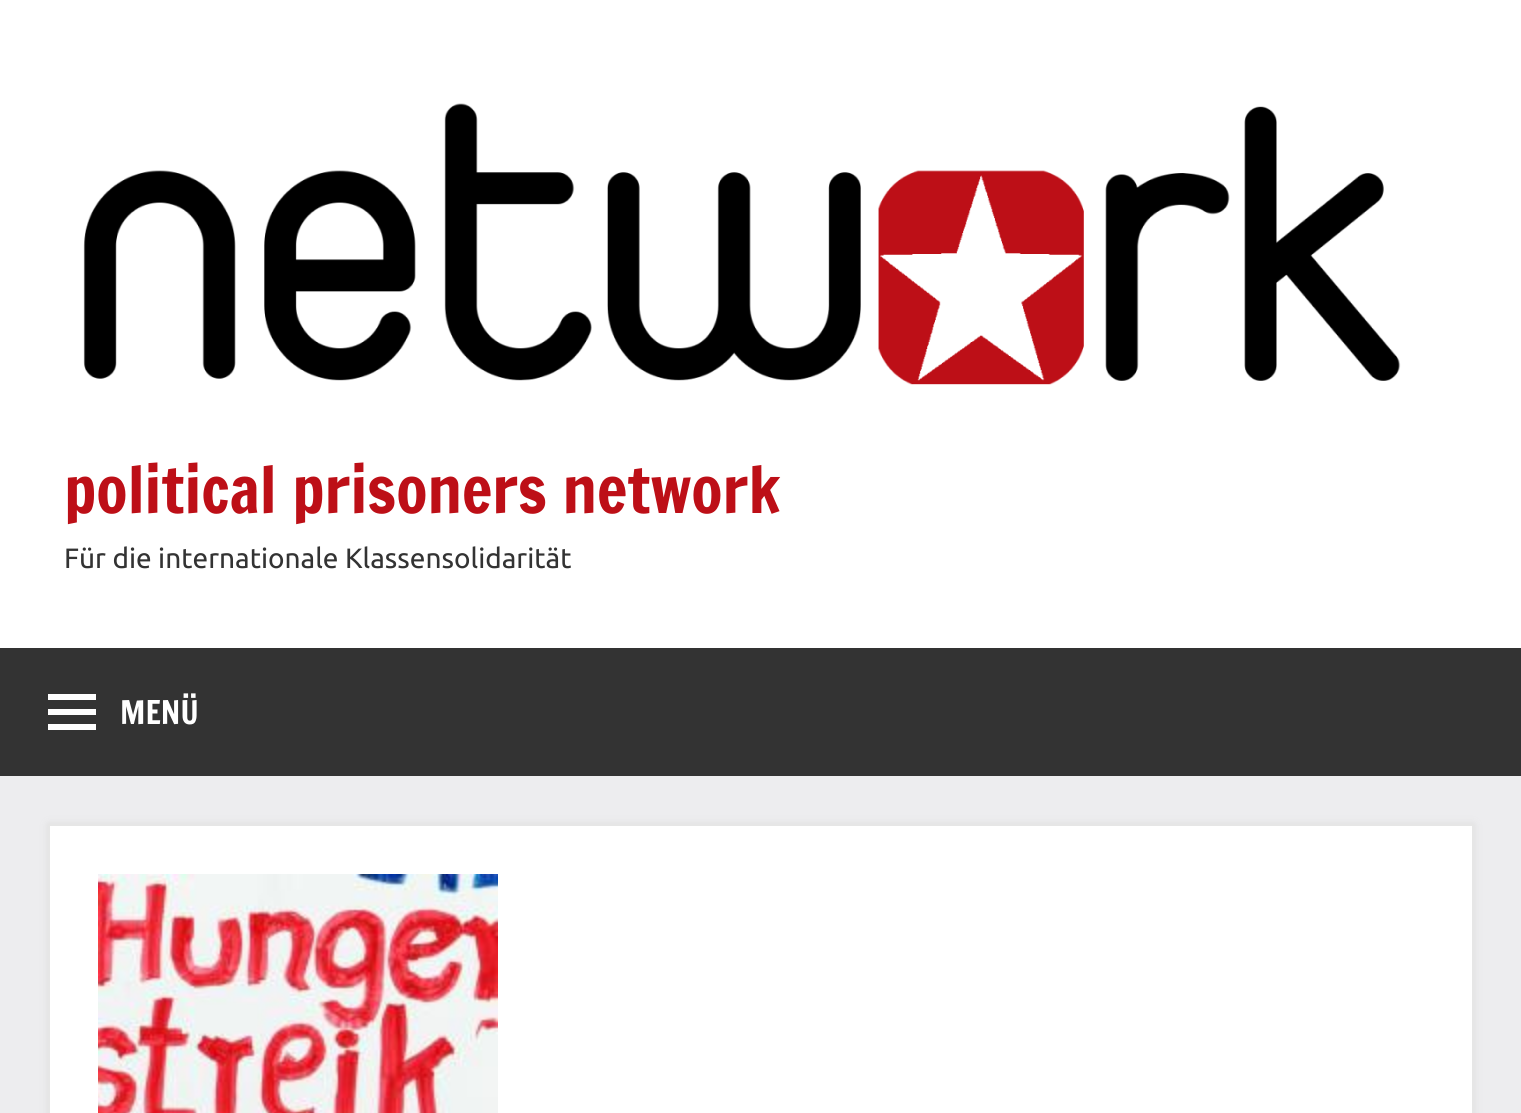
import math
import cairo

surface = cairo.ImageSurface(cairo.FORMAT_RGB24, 1521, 1113)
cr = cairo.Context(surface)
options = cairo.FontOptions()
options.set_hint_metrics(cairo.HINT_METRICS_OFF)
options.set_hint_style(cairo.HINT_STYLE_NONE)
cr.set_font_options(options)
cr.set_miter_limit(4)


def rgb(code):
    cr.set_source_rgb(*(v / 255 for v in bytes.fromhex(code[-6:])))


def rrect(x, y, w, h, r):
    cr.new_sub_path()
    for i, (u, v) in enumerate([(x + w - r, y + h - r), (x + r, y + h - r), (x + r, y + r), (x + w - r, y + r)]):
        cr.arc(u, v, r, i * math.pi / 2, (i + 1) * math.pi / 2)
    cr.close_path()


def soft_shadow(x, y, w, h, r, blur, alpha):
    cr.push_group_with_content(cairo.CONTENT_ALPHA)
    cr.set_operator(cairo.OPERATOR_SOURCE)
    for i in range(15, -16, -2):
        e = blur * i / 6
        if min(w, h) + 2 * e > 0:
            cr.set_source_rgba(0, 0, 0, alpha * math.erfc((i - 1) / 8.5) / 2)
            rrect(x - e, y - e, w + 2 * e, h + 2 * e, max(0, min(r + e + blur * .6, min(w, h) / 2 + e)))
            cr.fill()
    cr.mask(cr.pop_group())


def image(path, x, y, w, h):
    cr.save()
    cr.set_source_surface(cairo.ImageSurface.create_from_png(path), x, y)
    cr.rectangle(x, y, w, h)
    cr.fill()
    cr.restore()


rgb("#ededef")
cr.paint()
rgb("#ffffff")
cr.rectangle(0, 0, 1521, 648)
cr.fill()
image("img/1.png", 83, 103, 1318, 282)
rgb("#333333")
cr.rectangle(0, 648, 1521, 128)
cr.fill()
image("img/2.png", 48, 694, 48, 36)
rgb("#dddddd")
soft_shadow(48, 824, 1426, 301, 0, 4, 1)
rgb("#ffffff")
cr.rectangle(49, 825, 1424, 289)
cr.fill_preserve()
rgb("#e6e6e6")
cr.stroke()
image("img/3.png", 98, 874, 400, 239)
cr.select_font_face("Francois One")
cr.set_font_size(64)
rgb("#bd0f17")
cr.move_to(64, 513)
cr.show_text("political prisoners network")
cr.select_font_face("Ubuntu")
cr.set_font_size(28)
rgb("#333333")
cr.move_to(64, 568)
cr.show_text("Für die internationale Klassensolidarität")
cr.select_font_face("Francois One")
cr.set_font_size(32)
rgb("#ffffff")
cr.move_to(120, 724)
cr.show_text("MENÜ")
surface.write_to_png("page.png")
